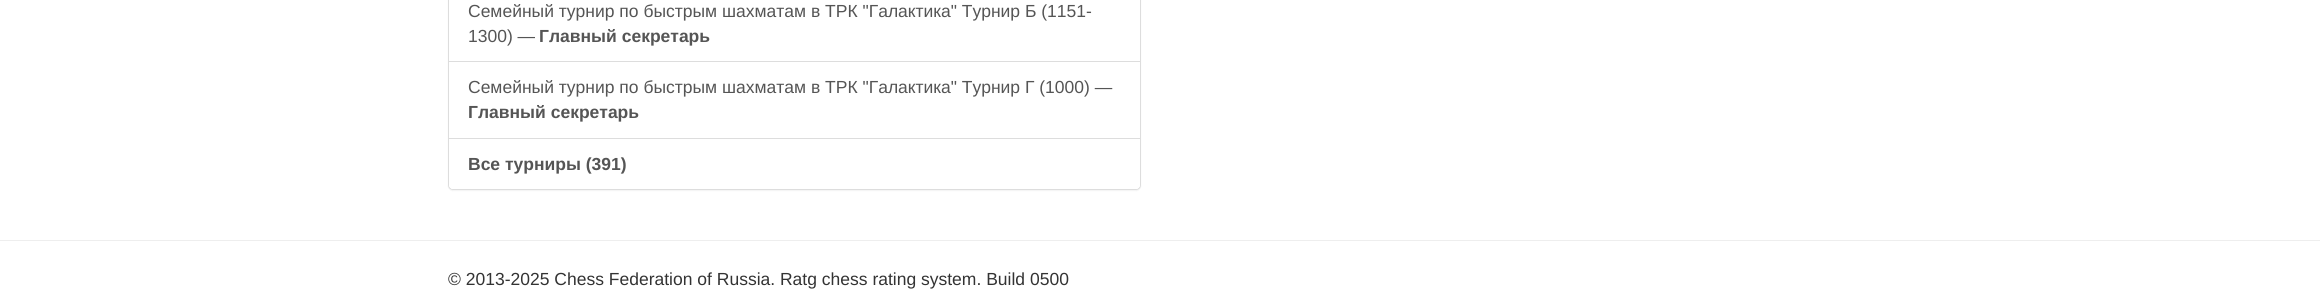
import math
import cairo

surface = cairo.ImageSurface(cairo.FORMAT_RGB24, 2320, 303)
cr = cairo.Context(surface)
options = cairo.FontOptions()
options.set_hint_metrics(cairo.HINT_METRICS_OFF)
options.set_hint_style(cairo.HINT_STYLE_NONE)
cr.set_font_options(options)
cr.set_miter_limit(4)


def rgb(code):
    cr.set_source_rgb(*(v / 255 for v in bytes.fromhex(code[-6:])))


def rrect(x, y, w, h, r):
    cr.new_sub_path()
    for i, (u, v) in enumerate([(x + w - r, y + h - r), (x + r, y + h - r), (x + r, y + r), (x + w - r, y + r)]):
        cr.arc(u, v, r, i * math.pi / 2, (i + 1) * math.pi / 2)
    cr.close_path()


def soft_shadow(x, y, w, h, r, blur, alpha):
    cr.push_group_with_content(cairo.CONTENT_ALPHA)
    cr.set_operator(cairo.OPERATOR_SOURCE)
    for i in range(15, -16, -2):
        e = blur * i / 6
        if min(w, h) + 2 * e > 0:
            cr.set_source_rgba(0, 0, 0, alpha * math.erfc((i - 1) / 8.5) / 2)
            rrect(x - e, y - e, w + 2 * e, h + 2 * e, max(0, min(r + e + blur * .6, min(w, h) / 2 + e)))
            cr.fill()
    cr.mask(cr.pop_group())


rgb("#ffffff")
cr.paint()
rgb("#000000")
soft_shadow(448, -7, 693, 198, 5, 0.5, 0.05)
rgb("#ffffff")
rrect(448.5, -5.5, 692, 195, 4.5)
cr.fill_preserve()
rgb("#dddddd")
cr.set_line_width(1)
cr.stroke()
cr.rectangle(449, 61, 691, 1)
cr.fill()
rgb("#ffffff")
cr.new_path()
cr.move_to(449, 138)
cr.line_to(1140, 138)
cr.line_to(1140, 185)
cr.curve_to(1140, 187, 1138, 189, 1136, 189)
cr.line_to(453, 189)
cr.curve_to(451, 189, 449, 187, 449, 185)
cr.close_path()
cr.fill()
rgb("#dddddd")
cr.rectangle(449, 138, 691, 1)
cr.fill()
rgb("#eeeeee")
cr.rectangle(0, 240, 2320, 1)
cr.fill()
cr.select_font_face("Liberation Sans")
cr.set_font_size(17.5)
rgb("#555555")
cr.move_to(468, 17)
cr.show_text("Семейный турнир по быстрым шахматам в ТРК \"Галактика\" Турнир Б (1151-")
cr.move_to(468, 42)
cr.show_text("1300) —")
cr.select_font_face("Liberation Sans", cairo.FONT_SLANT_NORMAL, cairo.FONT_WEIGHT_BOLD)
cr.move_to(539, 42)
cr.show_text("Главный секретарь")
cr.select_font_face("Liberation Sans")
cr.move_to(468, 93)
cr.show_text("Семейный турнир по быстрым шахматам в ТРК \"Галактика\" Турнир Г (1000) —")
cr.select_font_face("Liberation Sans", cairo.FONT_SLANT_NORMAL, cairo.FONT_WEIGHT_BOLD)
cr.move_to(468, 118)
cr.show_text("Главный секретарь")
cr.move_to(468, 170)
cr.show_text("Все турниры (391)")
cr.select_font_face("Liberation Sans")
rgb("#333333")
cr.move_to(448, 285)
cr.show_text("© 2013-2025 Chess Federation of Russia. Ratg chess rating system. Build 0500")
surface.write_to_png("page.png")
